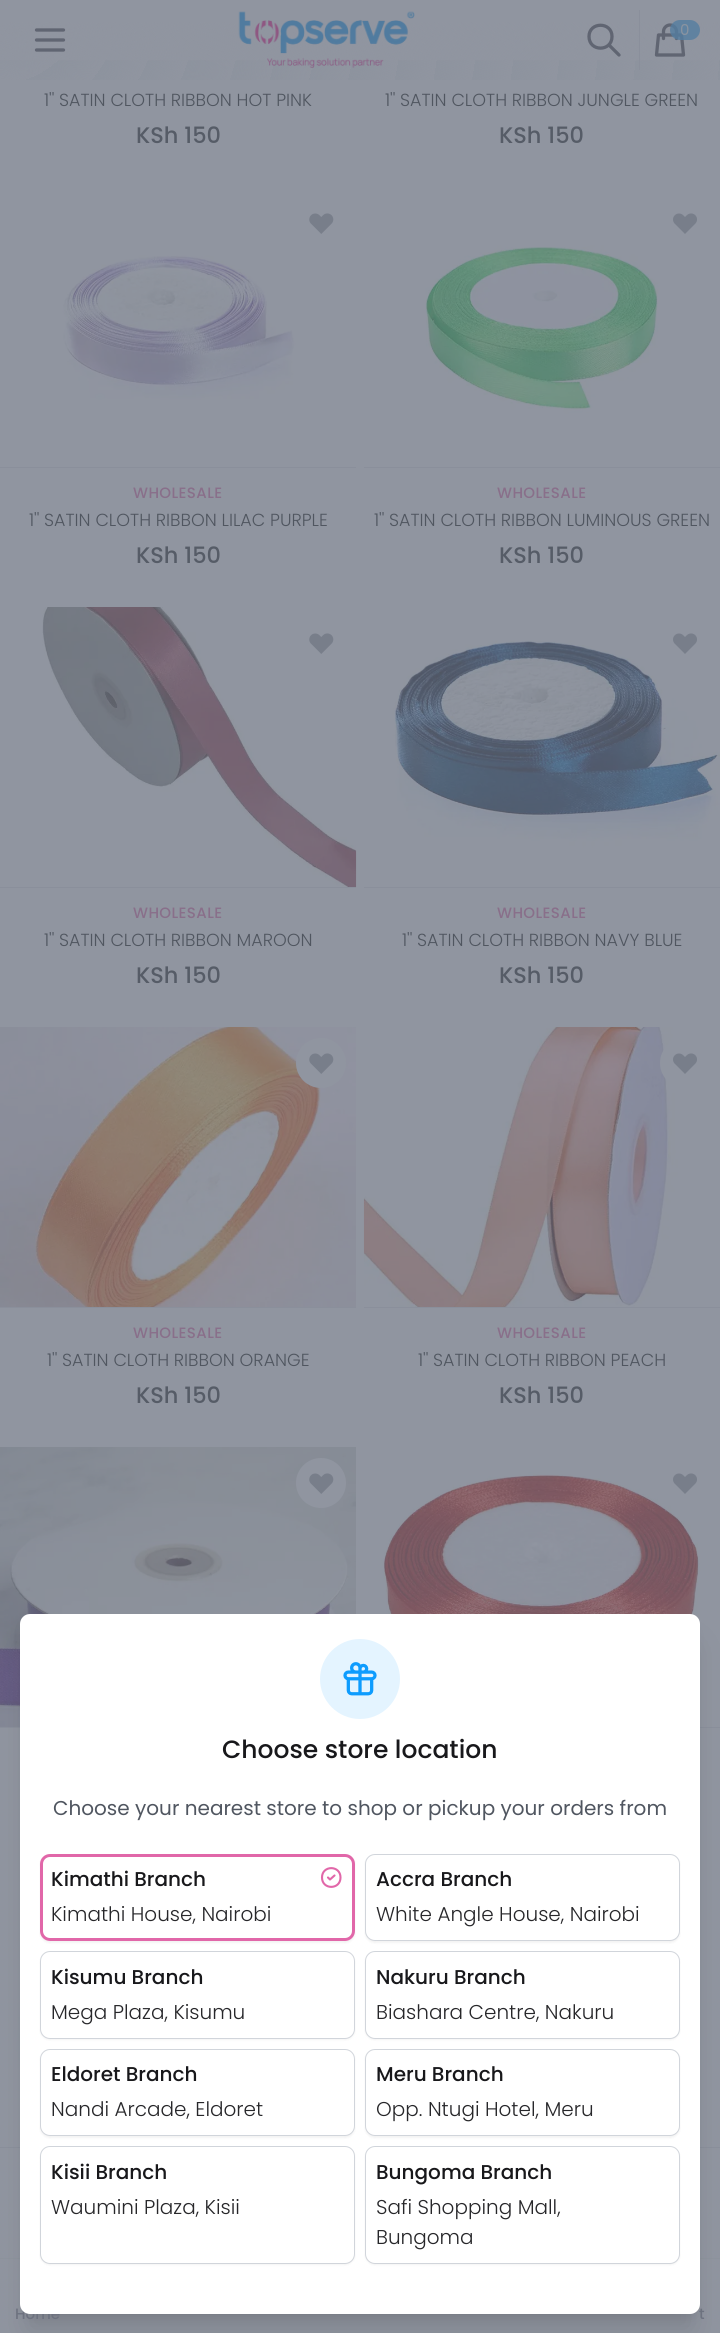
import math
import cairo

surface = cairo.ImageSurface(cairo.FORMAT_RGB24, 720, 2333)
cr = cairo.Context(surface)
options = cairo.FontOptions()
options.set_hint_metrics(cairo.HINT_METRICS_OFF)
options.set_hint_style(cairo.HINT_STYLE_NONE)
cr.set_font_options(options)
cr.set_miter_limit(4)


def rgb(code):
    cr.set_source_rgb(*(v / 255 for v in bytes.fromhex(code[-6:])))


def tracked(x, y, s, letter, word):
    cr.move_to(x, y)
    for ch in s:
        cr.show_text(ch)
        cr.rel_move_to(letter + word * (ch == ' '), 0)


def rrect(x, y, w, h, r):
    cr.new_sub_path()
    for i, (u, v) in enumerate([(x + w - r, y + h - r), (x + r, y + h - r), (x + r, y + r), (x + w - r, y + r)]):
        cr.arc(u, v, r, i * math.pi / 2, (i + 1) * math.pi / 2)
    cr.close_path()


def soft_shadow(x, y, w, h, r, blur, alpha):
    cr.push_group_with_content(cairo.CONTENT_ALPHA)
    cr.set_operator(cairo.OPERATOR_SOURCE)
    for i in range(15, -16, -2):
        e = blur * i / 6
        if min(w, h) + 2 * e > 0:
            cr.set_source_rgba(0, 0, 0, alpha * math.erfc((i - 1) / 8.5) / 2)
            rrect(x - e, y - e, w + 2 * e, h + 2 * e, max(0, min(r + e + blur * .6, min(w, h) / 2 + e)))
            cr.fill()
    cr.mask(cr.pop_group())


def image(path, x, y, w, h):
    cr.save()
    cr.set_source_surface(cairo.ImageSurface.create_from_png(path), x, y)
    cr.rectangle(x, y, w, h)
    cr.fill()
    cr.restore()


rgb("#9095a0")
cr.paint()
gradient = cairo.LinearGradient(360, 0, 360, 80)
gradient.add_color_stop_rgba(0, 0.561, 0.58, 0.624, 1)
gradient.add_color_stop_rgba(1, 0.553, 0.576, 0.62, 1)
cr.set_source(gradient)
cr.rectangle(0, 60, 720, 20)
cr.fill()
gradient = cairo.RadialGradient(0, 0, 0, 0, 0, 760)
gradient.add_color_stop_rgba(0, 0.565, 0.584, 0.627, 0)
gradient.add_color_stop_rgba(0.05, 0.565, 0.584, 0.627, 1)
gradient.add_color_stop_rgba(0.05, 0.565, 0.584, 0.627, 0)
gradient.add_color_stop_rgba(0.11, 0.565, 0.584, 0.627, 1)
gradient.add_color_stop_rgba(0.11, 0.565, 0.584, 0.627, 0)
gradient.add_color_stop_rgba(0.16, 0.565, 0.584, 0.627, 1)
gradient.add_color_stop_rgba(0.16, 0.565, 0.584, 0.627, 0)
gradient.add_color_stop_rgba(0.21, 0.565, 0.584, 0.627, 1)
gradient.add_color_stop_rgba(0.21, 0.565, 0.584, 0.627, 0)
gradient.add_color_stop_rgba(0.26, 0.565, 0.584, 0.627, 1)
gradient.add_color_stop_rgba(0.26, 0.565, 0.584, 0.627, 0)
gradient.add_color_stop_rgba(0.32, 0.565, 0.584, 0.627, 1)
gradient.add_color_stop_rgba(0.32, 0.565, 0.584, 0.627, 0)
gradient.add_color_stop_rgba(0.37, 0.565, 0.584, 0.627, 1)
gradient.add_color_stop_rgba(0.37, 0.565, 0.584, 0.627, 0)
gradient.add_color_stop_rgba(0.42, 0.565, 0.584, 0.627, 1)
gradient.add_color_stop_rgba(0.42, 0.565, 0.584, 0.627, 0)
gradient.add_color_stop_rgba(0.47, 0.565, 0.584, 0.627, 1)
gradient.add_color_stop_rgba(0.47, 0.565, 0.584, 0.627, 0)
gradient.add_color_stop_rgba(0.53, 0.565, 0.584, 0.627, 1)
gradient.add_color_stop_rgba(0.53, 0.565, 0.584, 0.627, 0)
gradient.add_color_stop_rgba(0.58, 0.565, 0.584, 0.627, 1)
gradient.add_color_stop_rgba(0.58, 0.565, 0.584, 0.627, 0)
gradient.add_color_stop_rgba(0.63, 0.565, 0.584, 0.627, 1)
gradient.add_color_stop_rgba(0.63, 0.565, 0.584, 0.627, 0)
gradient.add_color_stop_rgba(0.68, 0.565, 0.584, 0.627, 1)
gradient.add_color_stop_rgba(0.68, 0.565, 0.584, 0.627, 0)
gradient.add_color_stop_rgba(0.74, 0.565, 0.584, 0.627, 1)
gradient.add_color_stop_rgba(0.74, 0.565, 0.584, 0.627, 0)
gradient.add_color_stop_rgba(0.79, 0.565, 0.584, 0.627, 1)
gradient.add_color_stop_rgba(0.79, 0.565, 0.584, 0.627, 0)
gradient.add_color_stop_rgba(0.84, 0.565, 0.584, 0.627, 1)
gradient.add_color_stop_rgba(0.84, 0.565, 0.584, 0.627, 0)
gradient.add_color_stop_rgba(0.89, 0.565, 0.584, 0.627, 1)
gradient.add_color_stop_rgba(0.89, 0.565, 0.584, 0.627, 0)
gradient.add_color_stop_rgba(0.95, 0.565, 0.584, 0.627, 1)
gradient.add_color_stop_rgba(0.95, 0.565, 0.584, 0.627, 0)
gradient.add_color_stop_rgba(1, 0.565, 0.584, 0.627, 1)
cr.set_source(gradient)
cr.rectangle(0, 22, 720, 58)
cr.fill()
cr.new_path()
cr.move_to(36.5, 30)
cr.line_to(63.5, 30)
cr.move_to(36.5, 40)
cr.line_to(63.5, 40)
cr.move_to(36.5, 50)
cr.line_to(63.5, 50)
rgb("#606572")
cr.set_line_width(3.3)
cr.set_line_cap(cairo.LINE_CAP_ROUND)
cr.set_line_join(cairo.LINE_JOIN_ROUND)
cr.stroke()
image("img/1.png", 238, 11, 177, 57)
cr.new_path()
cr.move_to(619, 55)
cr.line_to(609, 45)
cr.move_to(612, 36.5)
cr.curve_to(612, 52, 589, 52, 589, 36.5)
cr.curve_to(589, 21.5, 612, 21.5, 612, 36.5)
cr.close_path()
cr.stroke()
rgb("#8a8f9b")
cr.rectangle(639, 10, 1, 60)
cr.fill()
cr.new_path()
cr.move_to(676.5, 38.5)
cr.line_to(676.5, 31.5)
cr.curve_to(676.5, 28, 673.5, 25, 670, 25)
cr.curve_to(666.5, 25, 663.5, 28, 663.5, 31.5)
cr.line_to(663.5, 38.5)
cr.move_to(658.5, 35)
cr.line_to(681.5, 35)
cr.line_to(683.5, 55)
cr.line_to(656.5, 55)
cr.close_path()
rgb("#606572")
cr.stroke()
cr.set_source_rgba(0.329, 0.49, 0.627, 0.8)
rrect(670, 20, 30, 20, 10)
cr.fill()
rgb("#8a8f9b")
cr.rectangle(0, 467, 356, 1)
cr.fill()
image("img/2.png", 0, 188, 356, 279)
image("img/3.png", 309, 213, 25, 21)
cr.rectangle(364, 467, 356, 1)
cr.fill()
image("img/4.png", 364, 188, 356, 279)
image("img/5.png", 673, 213, 24, 21)
cr.rectangle(0, 887, 356, 1)
cr.fill()
image("img/6.png", 0, 607, 357, 280)
image("img/3.png", 309, 633, 25, 21)
cr.rectangle(364, 887, 356, 1)
cr.fill()
image("img/7.png", 364, 608, 356, 279)
image("img/5.png", 673, 633, 24, 21)
cr.rectangle(0, 1307, 356, 1)
cr.fill()
image("img/8.png", 0, 1027, 356, 280)
rgb("#9095a0")
cr.arc(321, 1063, 25, 0, 2 * math.pi)
cr.fill()
image("img/3.png", 309, 1053, 25, 21)
rgb("#8a8f9b")
cr.rectangle(364, 1307, 356, 1)
cr.fill()
image("img/9.png", 363, 1027, 357, 280)
rgb("#9095a0")
cr.arc(685, 1063, 25, 0, 2 * math.pi)
cr.fill()
image("img/5.png", 673, 1053, 24, 21)
rgb("#8a8f9b")
cr.rectangle(0, 1727, 20, 1)
cr.fill()
image("img/10.png", 0, 1447, 356, 280)
rgb("#9095a0")
cr.arc(321, 1483, 25, 0, 2 * math.pi)
cr.fill()
image("img/3.png", 309, 1473, 25, 21)
rgb("#8a8f9b")
cr.rectangle(700, 1727, 20, 1)
cr.fill()
image("img/11.png", 364, 1448, 356, 279)
image("img/5.png", 673, 1473, 24, 21)
cr.rectangle(0, 2147, 20, 1)
cr.fill()
image("img/12.png", 0, 1868, 20, 279)
cr.rectangle(700, 2147, 20, 1)
cr.fill()
image("img/13.png", 700, 1868, 20, 279)
cr.rectangle(-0.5, 2258.5, 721, 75)
rgb("#8d939d")
cr.set_line_width(1)
cr.set_line_cap(cairo.LINE_CAP_BUTT)
cr.set_line_join(cairo.LINE_JOIN_MITER)
cr.stroke()
rgb("#000000")
soft_shadow(28, 1631, 665, 685, 2.5, 6, 0.1)
soft_shadow(26, 1645, 668, 688, 4, 15.5, 0.1)
cr.select_font_face("Poppins")
cr.set_font_size(15)
rgb("#8993a0")
cr.move_to(680, 35)
cr.show_text("0")
cr.select_font_face("Poppins Light")
cr.set_font_size(17.5)
rgb("#505660")
cr.move_to(44, 106)
cr.show_text("1'' SATIN CLOTH RIBBON HOT PINK")
cr.select_font_face("Poppins Medium")
cr.set_font_size(22.5)
rgb("#565c67")
cr.move_to(136, 143)
cr.show_text("KSh 150")
cr.select_font_face("Poppins Light")
cr.set_font_size(17.5)
rgb("#505660")
cr.move_to(385, 106)
cr.show_text("1'' SATIN CLOTH RIBBON JUNGLE GREEN")
cr.select_font_face("Poppins Medium")
cr.set_font_size(22.5)
rgb("#565c67")
cr.move_to(499, 143)
cr.show_text("KSh 150")
cr.set_font_size(15)
rgb("#896f8a")
tracked(133, 498, "WHOLESALE", 0.4, 0)
cr.select_font_face("Poppins Light")
cr.set_font_size(17.5)
rgb("#505660")
cr.move_to(29, 526)
cr.show_text("1'' SATIN CLOTH RIBBON LILAC PURPLE")
cr.select_font_face("Poppins Medium")
cr.set_font_size(22.5)
rgb("#565c67")
cr.move_to(136, 563)
cr.show_text("KSh 150")
cr.set_font_size(15)
rgb("#896f8a")
tracked(497, 498, "WHOLESALE", 0.4, 0)
cr.select_font_face("Poppins Light")
cr.set_font_size(17.5)
rgb("#505660")
cr.move_to(374, 526)
cr.show_text("1'' SATIN CLOTH RIBBON LUMINOUS GREEN")
cr.select_font_face("Poppins Medium")
cr.set_font_size(22.5)
rgb("#565c67")
cr.move_to(499, 563)
cr.show_text("KSh 150")
cr.set_font_size(15)
rgb("#896f8a")
tracked(133, 918, "WHOLESALE", 0.4, 0)
cr.select_font_face("Poppins Light")
cr.set_font_size(17.5)
rgb("#505660")
cr.move_to(44, 946)
cr.show_text("1'' SATIN CLOTH RIBBON MAROON")
cr.select_font_face("Poppins Medium")
cr.set_font_size(22.5)
rgb("#565c67")
cr.move_to(136, 983)
cr.show_text("KSh 150")
cr.set_font_size(15)
rgb("#896f8a")
tracked(497, 918, "WHOLESALE", 0.4, 0)
cr.select_font_face("Poppins Light")
cr.set_font_size(17.5)
rgb("#505660")
cr.move_to(402, 946)
cr.show_text("1'' SATIN CLOTH RIBBON NAVY BLUE")
cr.select_font_face("Poppins Medium")
cr.set_font_size(22.5)
rgb("#565c67")
cr.move_to(499, 983)
cr.show_text("KSh 150")
cr.set_font_size(15)
rgb("#896f8a")
tracked(133, 1338, "WHOLESALE", 0.4, 0)
cr.select_font_face("Poppins Light")
cr.set_font_size(17.5)
rgb("#505660")
cr.move_to(47, 1366)
cr.show_text("1'' SATIN CLOTH RIBBON ORANGE")
cr.select_font_face("Poppins Medium")
cr.set_font_size(22.5)
rgb("#565c67")
cr.move_to(136, 1403)
cr.show_text("KSh 150")
cr.set_font_size(15)
rgb("#896f8a")
tracked(497, 1338, "WHOLESALE", 0.4, 0)
cr.select_font_face("Poppins Light")
cr.set_font_size(17.5)
rgb("#505660")
cr.move_to(418, 1366)
cr.show_text("1'' SATIN CLOTH RIBBON PEACH")
cr.select_font_face("Poppins Medium")
cr.set_font_size(22.5)
rgb("#565c67")
cr.move_to(499, 1403)
cr.show_text("KSh 150")
cr.set_font_size(15)
rgb("#6d727f")
cr.move_to(15, 2319)
cr.show_text("Home")
cr.move_to(699, 2319)
cr.show_text("t")
rgb("#ffffff")
rrect(20, 1614, 680, 700, 10)
cr.fill()
rgb("#000000")
soft_shadow(365, 2148, 315, 117, 10, 1, 0.05)
rgb("#ffffff")
rrect(365.5, 2146.5, 314, 117, 9.5)
cr.fill_preserve()
rgb("#d1d5db")
cr.stroke()
cr.select_font_face("Poppins Light")
cr.set_font_size(20)
rgb("#27272a")
cr.move_to(376, 2244)
cr.show_text("Bungoma")
cr.move_to(376, 2214)
cr.show_text("Safi Shopping Mall,")
cr.select_font_face("Poppins Medium")
rgb("#18181b")
cr.move_to(376, 2179)
cr.show_text("Bungoma Branch")
rgb("#000000")
soft_shadow(40, 2148, 315, 117, 10, 1, 0.05)
rgb("#ffffff")
rrect(40.5, 2146.5, 314, 117, 9.5)
cr.fill_preserve()
rgb("#d1d5db")
cr.stroke()
cr.select_font_face("Poppins Light")
rgb("#27272a")
cr.move_to(51, 2214)
cr.show_text("Waumini Plaza, Kisii")
cr.select_font_face("Poppins Medium")
rgb("#18181b")
cr.move_to(51, 2179)
cr.show_text("Kisii Branch")
rgb("#000000")
soft_shadow(365, 2050, 315, 88, 10, 1, 0.05)
rgb("#ffffff")
rrect(365.5, 2049.5, 314, 86, 9.5)
cr.fill_preserve()
rgb("#d1d5db")
cr.stroke()
cr.select_font_face("Poppins Light")
rgb("#27272a")
cr.move_to(376, 2116)
cr.show_text("Opp. Ntugi Hotel, Meru")
cr.select_font_face("Poppins Medium")
rgb("#18181b")
cr.move_to(376, 2081)
cr.show_text("Meru Branch")
rgb("#000000")
soft_shadow(40, 2050, 315, 88, 10, 1, 0.05)
rgb("#ffffff")
rrect(40.5, 2049.5, 314, 86, 9.5)
cr.fill_preserve()
rgb("#d1d5db")
cr.stroke()
cr.select_font_face("Poppins Light")
rgb("#27272a")
cr.move_to(51, 2116)
cr.show_text("Nandi Arcade, Eldoret")
cr.select_font_face("Poppins Medium")
rgb("#18181b")
cr.move_to(51, 2081)
cr.show_text("Eldoret Branch")
rgb("#000000")
soft_shadow(365, 1953, 315, 87, 10, 1, 0.05)
rgb("#ffffff")
rrect(365.5, 1951.5, 314, 87, 9.5)
cr.fill_preserve()
rgb("#d1d5db")
cr.stroke()
cr.select_font_face("Poppins Light")
rgb("#27272a")
cr.move_to(376, 2019)
cr.show_text("Biashara Centre, Nakuru")
cr.select_font_face("Poppins Medium")
rgb("#18181b")
cr.move_to(376, 1984)
cr.show_text("Nakuru Branch")
rgb("#000000")
soft_shadow(40, 1953, 315, 87, 10, 1, 0.05)
rgb("#ffffff")
rrect(40.5, 1951.5, 314, 87, 9.5)
cr.fill_preserve()
rgb("#d1d5db")
cr.stroke()
cr.select_font_face("Poppins Light")
rgb("#27272a")
cr.move_to(51, 2019)
cr.show_text("Mega Plaza, Kisumu")
cr.select_font_face("Poppins Medium")
rgb("#18181b")
cr.move_to(51, 1984)
cr.show_text("Kisumu Branch")
rgb("#000000")
soft_shadow(365, 1855, 315, 88, 10, 1, 0.05)
rgb("#ffffff")
rrect(365.5, 1854.5, 314, 86, 9.5)
cr.fill_preserve()
rgb("#d1d5db")
cr.stroke()
cr.select_font_face("Poppins Light")
rgb("#27272a")
cr.move_to(376, 1921)
cr.show_text("White Angle House, Nairobi")
cr.select_font_face("Poppins Medium")
rgb("#18181b")
cr.move_to(376, 1886)
cr.show_text("Accra Branch")
rgb("#000000")
soft_shadow(40, 1855, 315, 88, 10, 1, 0.05)
rgb("#ffffff")
rrect(40, 1854, 315, 87, 10)
cr.fill()
cr.new_path()
cr.move_to(328, 1877.5)
cr.line_to(330, 1879.5)
cr.line_to(334.5, 1875.5)
cr.move_to(340.5, 1877.5)
cr.curve_to(340.5, 1890, 322, 1890, 322, 1877.5)
cr.curve_to(322, 1865, 340.5, 1865, 340.5, 1877.5)
cr.close_path()
rgb("#e167a9")
cr.set_line_width(2.1)
cr.set_line_cap(cairo.LINE_CAP_ROUND)
cr.set_line_join(cairo.LINE_JOIN_ROUND)
cr.stroke()
rrect(41.5, 1855.5, 312, 84, 8.5)
cr.set_line_width(3)
cr.set_line_cap(cairo.LINE_CAP_BUTT)
cr.set_line_join(cairo.LINE_JOIN_MITER)
cr.stroke()
cr.select_font_face("Poppins Light")
rgb("#27272a")
cr.move_to(51, 1921)
cr.show_text("Kimathi House, Nairobi")
cr.select_font_face("Poppins Medium")
rgb("#18181b")
cr.move_to(51, 1886)
cr.show_text("Kimathi Branch")
rgb("#e4f4ff")
cr.new_path()
cr.arc(360, 1679, 40, 0, 2 * math.pi)
cr.fill()
image("img/14.png", 343, 1662, 34, 34)
cr.select_font_face("Poppins")
rgb("#505660")
cr.move_to(53, 1815)
cr.show_text("Choose your nearest store to shop or pickup your orders from")
cr.select_font_face("Poppins Medium")
cr.set_font_size(25)
rgb("#18181b")
cr.move_to(222, 1758)
cr.show_text("Choose store location")
surface.write_to_png("page.png")
